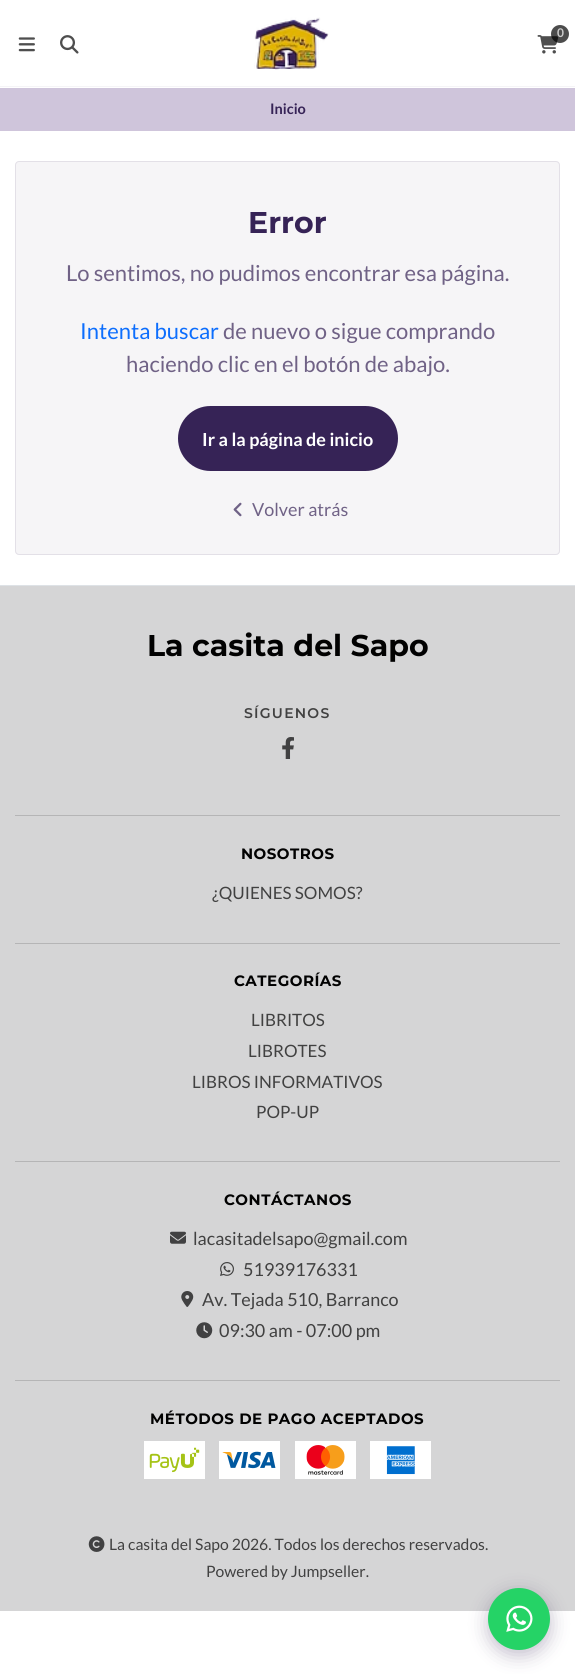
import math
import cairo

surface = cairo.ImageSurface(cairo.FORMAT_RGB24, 575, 1674)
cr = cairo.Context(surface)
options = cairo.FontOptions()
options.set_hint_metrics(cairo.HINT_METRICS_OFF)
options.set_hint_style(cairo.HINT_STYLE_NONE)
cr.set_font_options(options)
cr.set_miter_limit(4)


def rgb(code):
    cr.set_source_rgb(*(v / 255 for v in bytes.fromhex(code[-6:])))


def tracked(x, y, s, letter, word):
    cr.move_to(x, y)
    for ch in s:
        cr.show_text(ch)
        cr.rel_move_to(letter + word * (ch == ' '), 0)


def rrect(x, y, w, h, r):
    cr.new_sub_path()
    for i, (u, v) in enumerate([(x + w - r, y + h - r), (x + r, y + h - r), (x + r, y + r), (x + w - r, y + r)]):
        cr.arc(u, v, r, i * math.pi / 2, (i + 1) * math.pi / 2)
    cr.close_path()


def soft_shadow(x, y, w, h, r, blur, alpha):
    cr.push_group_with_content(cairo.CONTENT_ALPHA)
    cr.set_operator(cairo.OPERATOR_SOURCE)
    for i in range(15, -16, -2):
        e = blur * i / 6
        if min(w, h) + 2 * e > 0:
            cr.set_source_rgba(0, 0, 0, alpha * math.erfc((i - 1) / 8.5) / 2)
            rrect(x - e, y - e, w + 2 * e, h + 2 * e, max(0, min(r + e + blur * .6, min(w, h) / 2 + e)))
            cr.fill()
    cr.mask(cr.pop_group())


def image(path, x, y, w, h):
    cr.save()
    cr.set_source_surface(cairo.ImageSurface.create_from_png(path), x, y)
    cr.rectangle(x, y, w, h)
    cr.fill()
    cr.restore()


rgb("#ffffff")
cr.paint()
rgb("#f5f4f7")
cr.rectangle(0, 86, 575, 1)
cr.fill()
image("img/1.png", 254, 17, 75, 53)
image("img/2.png", 537, 35, 22, 19)
cr.set_source_rgba(0.004, 0.004, 0.004, 0.7)
cr.arc(560, 34, 9, 0, 2 * math.pi)
cr.fill()
image("img/3.png", 18, 37, 17, 15)
image("img/4.png", 60, 35, 19, 19)
rgb("#cfc5db")
cr.rectangle(0, 88, 575, 43)
cr.fill()
rgb("#f6f5f7")
rrect(15, 161, 545, 394, 4)
cr.fill()
rrect(15.5, 161.5, 544, 393, 3.5)
cr.set_source_rgba(0.212, 0.137, 0.337, 0.1)
cr.set_line_width(1)
cr.stroke()
rgb("#362356")
rrect(178, 406, 220, 65, 32.5)
cr.fill()
image("img/5.png", 233, 502, 9, 15)
rgb("#d5d5d6")
cr.rectangle(0, 586, 575, 1025)
cr.fill()
rgb("#dee2e6")
cr.rectangle(0, 585, 575, 1)
cr.fill()
image("img/6.png", 282, 737, 12, 22)
for x, y, w, h, color in [
    (15, 815, 545, 1, "#b5b5b6"),
    (15, 943, 545, 1, "#b5b5b6"),
    (15, 1161, 545, 1, "#b5b5b6"),
]:
    rgb(color)
    cr.rectangle(x, y, w, h)
    cr.fill()
image("img/7.png", 170, 1231, 16, 13)
image("img/8.png", 220, 1262, 14, 14)
image("img/9.png", 181, 1291, 13, 16)
image("img/10.png", 196, 1322, 17, 17)
cr.rectangle(15, 1380, 545, 1)
cr.fill()
image("img/11.png", 144, 1441, 61, 38)
image("img/12.png", 219, 1441, 61, 38)
image("img/13.png", 295, 1441, 61, 38)
image("img/14.png", 370, 1441, 61, 38)
image("img/15.png", 88, 1536, 17, 16)
rgb("#362356")
soft_shadow(488, 1593, 62, 62, 31, 9.5, 0.3)
rgb("#25d366")
cr.arc(519, 1619, 31, 0, 2 * math.pi)
cr.fill()
image("img/16.png", 506, 1605, 27, 27)
cr.select_font_face("Lato", cairo.FONT_SLANT_NORMAL, cairo.FONT_WEIGHT_BOLD)
cr.set_font_size(12)
rgb("#cacaca")
cr.move_to(557, 37)
cr.show_text("0")
cr.set_font_size(14.5)
rgb("#362356")
cr.move_to(270, 114)
cr.show_text("Inicio")
cr.select_font_face("Montserrat", cairo.FONT_SLANT_NORMAL, cairo.FONT_WEIGHT_BOLD)
cr.set_font_size(30)
cr.move_to(248, 233)
cr.show_text("Error")
cr.select_font_face("Lato")
cr.set_font_size(22)
rgb("#706286")
cr.move_to(66, 281)
cr.show_text("Lo sentimos, no pudimos encontrar esa página.")
rgb("#0d6efd")
cr.move_to(80, 339)
cr.show_text("Intenta buscar")
rgb("#706286")
cr.move_to(223, 339)
cr.show_text("de nuevo o sigue comprando")
cr.move_to(126, 372)
cr.show_text("haciendo clic en el botón de abajo.")
cr.select_font_face("Lato", cairo.FONT_SLANT_NORMAL, cairo.FONT_WEIGHT_BOLD)
cr.set_font_size(18)
rgb("#ffffff")
cr.move_to(202, 446)
cr.show_text("Ir a la página de inicio")
cr.select_font_face("Lato")
rgb("#706286")
cr.move_to(252, 516)
cr.show_text("Volver atrás")
cr.select_font_face("Montserrat", cairo.FONT_SLANT_NORMAL, cairo.FONT_WEIGHT_BOLD)
cr.set_font_size(30)
rgb("#010101")
cr.move_to(147, 656)
cr.show_text("La casita del Sapo")
cr.select_font_face("Montserrat SemiBold")
cr.set_font_size(14)
rgb("#414141")
tracked(244, 718, "SÍGUENOS", 1.25, 0)
cr.select_font_face("Montserrat", cairo.FONT_SLANT_NORMAL, cairo.FONT_WEIGHT_BOLD)
cr.set_font_size(15)
rgb("#010101")
tracked(241, 859, "NOSOTROS", 0.5, 0)
cr.select_font_face("Lato")
cr.set_font_size(17)
rgb("#414141")
cr.move_to(212, 899)
cr.show_text("¿QUIENES SOMOS?")
cr.select_font_face("Montserrat", cairo.FONT_SLANT_NORMAL, cairo.FONT_WEIGHT_BOLD)
cr.set_font_size(15)
rgb("#010101")
tracked(234, 986, "CATEGORÍAS", 0.5, 0)
cr.select_font_face("Lato")
cr.set_font_size(17)
rgb("#414141")
for x, y, s in [
    (251, 1026, "LIBRITOS"),
    (248, 1057, "LIBROTES"),
    (192, 1088, "LIBROS INFORMATIVOS"),
    (256, 1118, "POP-UP"),
]:
    cr.move_to(x, y)
    cr.show_text(s)
cr.select_font_face("Montserrat", cairo.FONT_SLANT_NORMAL, cairo.FONT_WEIGHT_BOLD)
cr.set_font_size(15)
rgb("#010101")
tracked(224, 1205, "CONTÁCTANOS", 0.5, 0)
cr.select_font_face("Lato")
cr.set_font_size(18)
rgb("#414141")
for x, y, s in [
    (193, 1245, "lacasitadelsapo@gmail.com"),
    (243, 1276, "51939176331"),
    (202, 1306, "Av. Tejada 510, Barranco"),
    (219, 1337, "09:30 am - 07:00 pm"),
]:
    cr.move_to(x, y)
    cr.show_text(s)
cr.select_font_face("Montserrat", cairo.FONT_SLANT_NORMAL, cairo.FONT_WEIGHT_BOLD)
cr.set_font_size(15)
rgb("#010101")
tracked(150, 1424, "MÉTODOS DE PAGO ACEPTADOS", 0.5, 0)
cr.select_font_face("Lato")
cr.set_font_size(15.7)
rgb("#414141")
cr.move_to(109, 1550)
cr.show_text("La casita del Sapo 2026. Todos los derechos reservados.")
cr.move_to(206, 1577)
cr.show_text("Powered by Jumpseller.")
surface.write_to_png("page.png")
